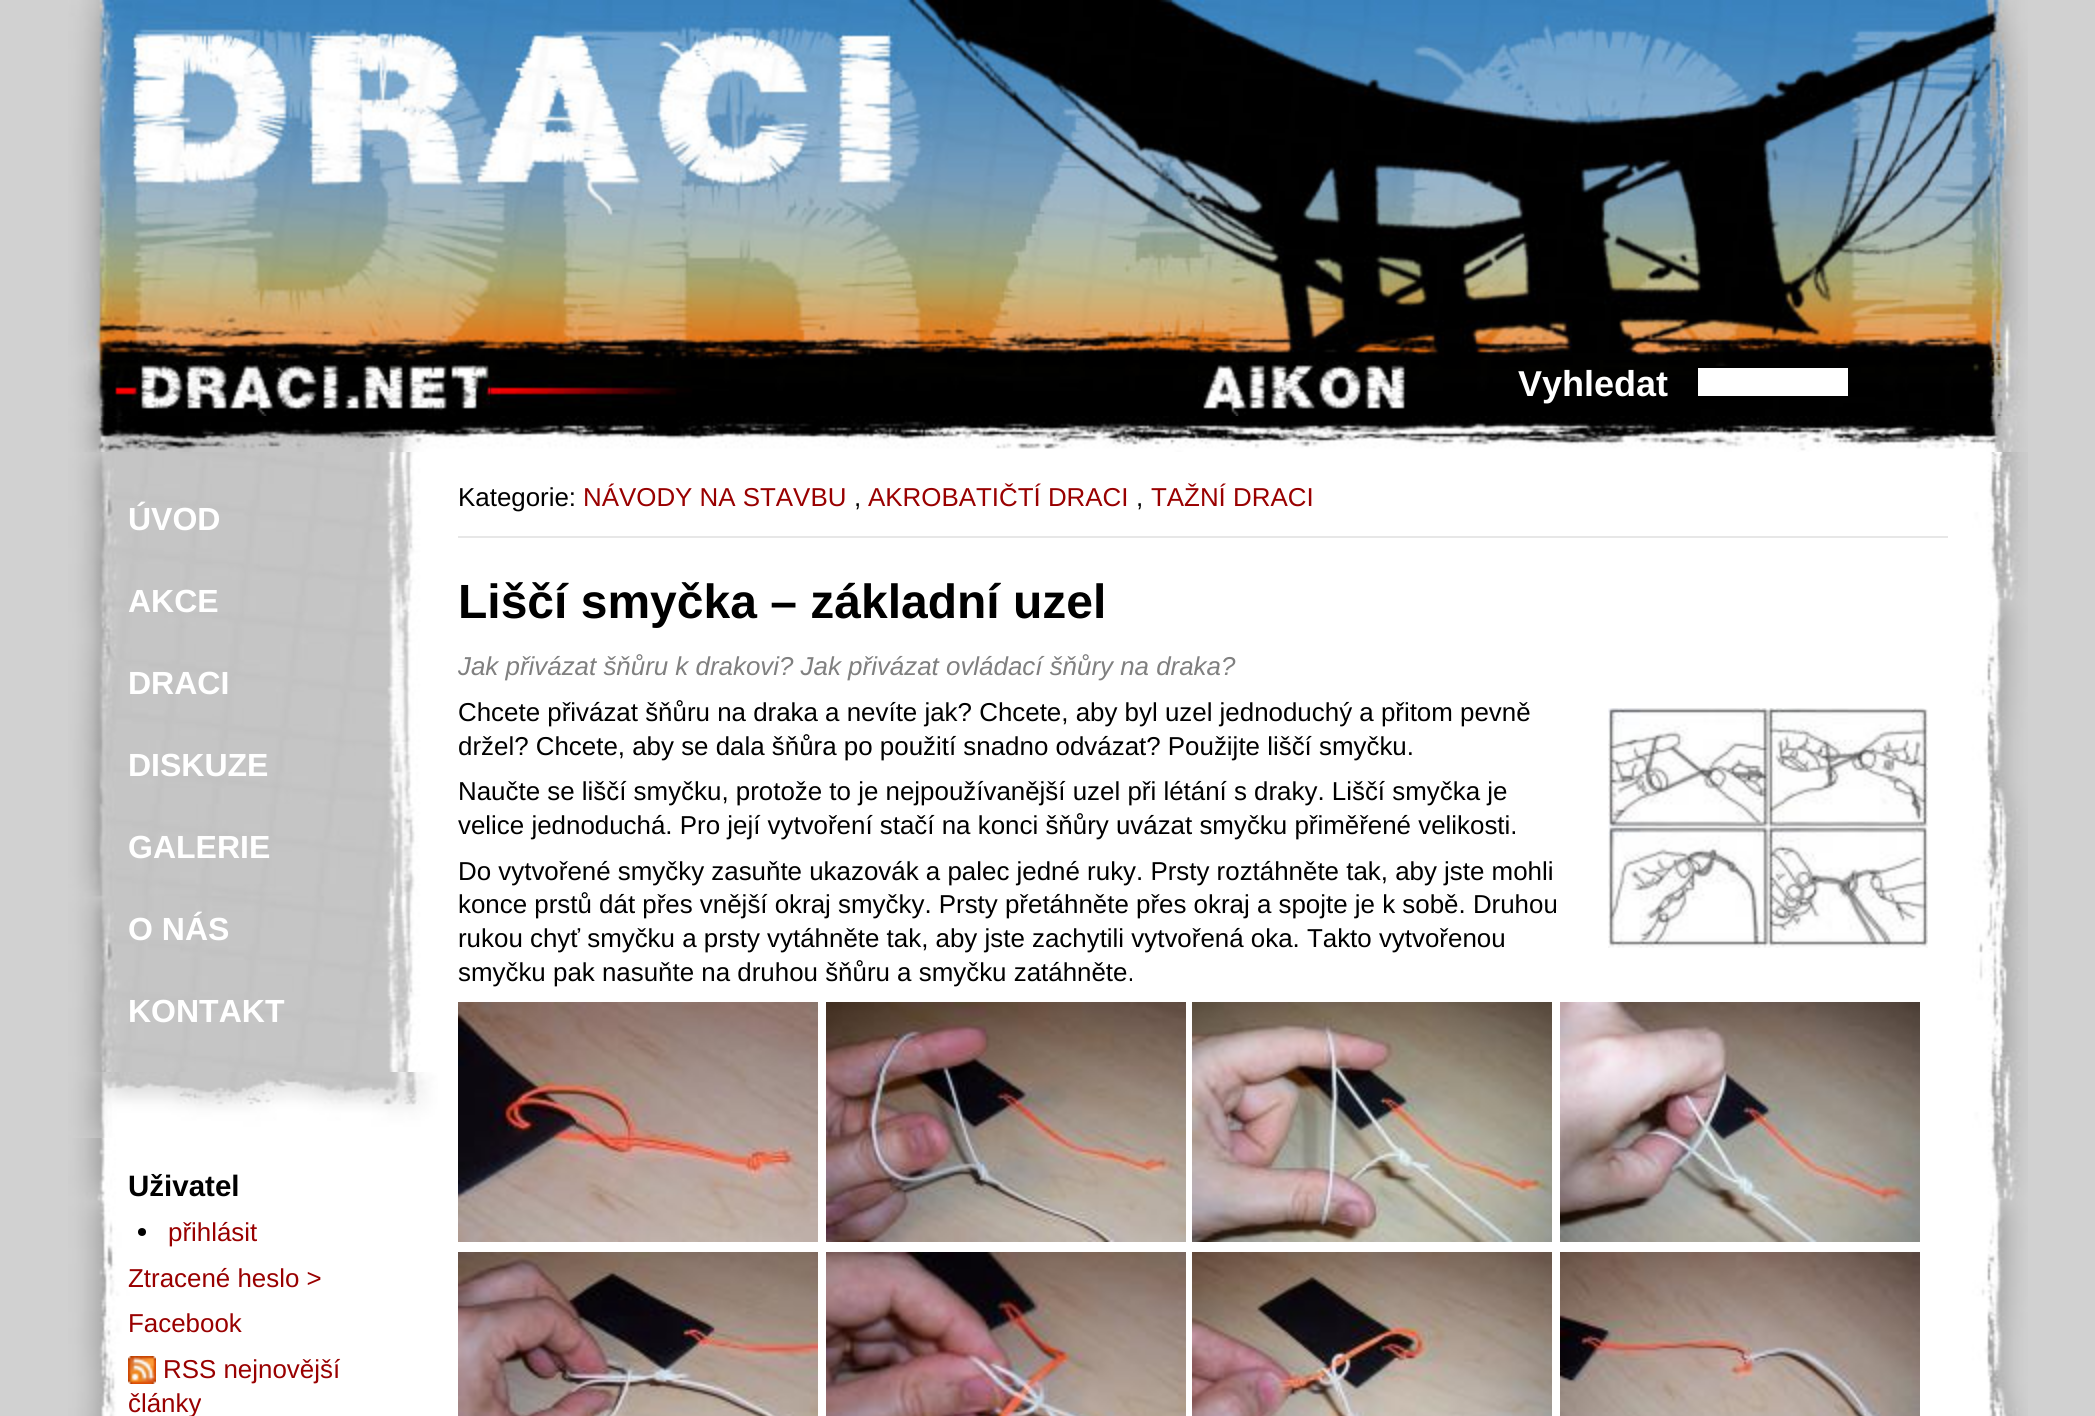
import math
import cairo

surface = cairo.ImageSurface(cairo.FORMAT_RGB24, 2095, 1416)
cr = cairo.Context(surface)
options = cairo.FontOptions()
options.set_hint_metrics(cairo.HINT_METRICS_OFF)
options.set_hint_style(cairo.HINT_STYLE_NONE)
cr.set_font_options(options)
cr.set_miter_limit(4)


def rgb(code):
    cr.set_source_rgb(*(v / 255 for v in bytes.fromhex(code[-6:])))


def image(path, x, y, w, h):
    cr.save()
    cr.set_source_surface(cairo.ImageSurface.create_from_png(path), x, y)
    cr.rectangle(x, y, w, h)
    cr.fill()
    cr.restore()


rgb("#d1d1d1")
cr.paint()
image("img/1.png", 68, 452, 1960, 964)
image("img/2.png", 68, 0, 1960, 360)
image("img/3.png", 68, 360, 1960, 56)
image("img/4.png", 138, 360, 352, 56)
image("img/5.png", 1198, 360, 208, 56)
rgb("#ffffff")
cr.rectangle(1697, 367, 152, 30)
cr.fill_preserve()
rgb("#000000")
cr.stroke()
image("img/6.png", 68, 416, 1960, 36)
cr.rectangle(196, 416, 294, 6)
cr.fill()
cr.rectangle(1198, 416, 214, 6)
cr.fill()
image("img/7.png", 68, 452, 370, 620)
rgb("#e7e7e7")
cr.rectangle(458, 536, 1490, 2)
cr.fill()
image("img/8.png", 1608, 708, 320, 240)
image("img/9.png", 458, 1002, 360, 240)
image("img/10.png", 826, 1002, 360, 240)
image("img/11.png", 1192, 1002, 360, 240)
image("img/12.png", 1560, 1002, 360, 240)
image("img/13.png", 458, 1252, 360, 164)
image("img/14.png", 826, 1252, 360, 164)
image("img/15.png", 1192, 1252, 360, 164)
image("img/16.png", 1560, 1252, 360, 164)
image("img/17.png", 68, 1072, 370, 66)
rgb("#000000")
cr.arc(142, 1232, 4, 0, 2 * math.pi)
cr.fill()
image("img/18.png", 128, 1356, 28, 28)
cr.select_font_face("Liberation Sans", cairo.FONT_SLANT_NORMAL, cairo.FONT_WEIGHT_BOLD)
cr.set_font_size(36)
rgb("#ffffff")
cr.move_to(1518, 396)
cr.show_text("Vyhledat")
cr.set_font_size(32)
for x, y, s in [
    (128, 530, "ÚVOD"),
    (128, 612, "AKCE"),
    (128, 694, "DRACI"),
    (128, 776, "DISKUZE"),
    (128, 858, "GALERIE"),
    (128, 940, "O NÁS"),
    (128, 1022, "KONTAKT"),
]:
    cr.move_to(x, y)
    cr.show_text(s)
cr.select_font_face("Liberation Sans")
cr.set_font_size(25.9)
rgb("#000000")
cr.move_to(458, 506)
cr.show_text("Kategorie:")
rgb("#990000")
cr.move_to(583, 506)
cr.show_text("NÁVODY NA STAVBU")
rgb("#000000")
cr.move_to(854, 506)
cr.show_text(",")
rgb("#990000")
cr.move_to(868, 506)
cr.show_text("AKROBATIČTÍ DRACI")
rgb("#000000")
cr.move_to(1136, 506)
cr.show_text(",")
rgb("#990000")
cr.move_to(1151, 506)
cr.show_text("TAŽNÍ DRACI")
cr.select_font_face("Liberation Sans", cairo.FONT_SLANT_NORMAL, cairo.FONT_WEIGHT_BOLD)
cr.set_font_size(48)
rgb("#000000")
cr.move_to(458, 618)
cr.show_text("Liščí smyčka – základní uzel")
cr.select_font_face("Liberation Sans", cairo.FONT_SLANT_ITALIC)
cr.set_font_size(25.9)
rgb("#808080")
cr.move_to(458, 675)
cr.show_text("Jak přivázat šňůru k drakovi? Jak přivázat ovládací šňůry na draka?")
cr.select_font_face("Liberation Sans")
rgb("#000000")
for x, y, s in [
    (458, 721, "Chcete přivázat šňůru na draka a nevíte jak? Chcete, aby byl uzel jednoduchý a přitom pevně"),
    (458, 755, "držel? Chcete, aby se dala šňůra po použití snadno odvázat? Použijte liščí smyčku."),
    (458, 800, "Naučte se liščí smyčku, protože to je nejpoužívanější uzel při létání s draky. Liščí smyčka je"),
    (458, 834, "velice jednoduchá. Pro její vytvoření stačí na konci šňůry uvázat smyčku přiměřené velikosti."),
    (458, 880, "Do vytvořené smyčky zasuňte ukazovák a palec jedné ruky. Prsty roztáhněte tak, aby jste mohli"),
    (458, 913, "konce prstů dát přes vnější okraj smyčky. Prsty přetáhněte přes okraj a spojte je k sobě. Druhou"),
    (458, 947, "rukou chyť smyčku a prsty vytáhněte tak, aby jste zachytili vytvořená oka. Takto vytvořenou"),
    (458, 981, "smyčku pak nasuňte na druhou šňůru a smyčku zatáhněte."),
]:
    cr.move_to(x, y)
    cr.show_text(s)
cr.select_font_face("Liberation Sans", cairo.FONT_SLANT_NORMAL, cairo.FONT_WEIGHT_BOLD)
cr.set_font_size(29.5)
cr.move_to(128, 1196)
cr.show_text("Uživatel")
cr.select_font_face("Liberation Sans")
cr.set_font_size(25.9)
rgb("#990000")
for x, y, s in [
    (168, 1241, "přihlásit"),
    (128, 1287, "Ztracené heslo >"),
    (128, 1332, "Facebook"),
    (163, 1378, "RSS nejnovější"),
    (128, 1412, "články"),
]:
    cr.move_to(x, y)
    cr.show_text(s)
surface.write_to_png("page.png")
